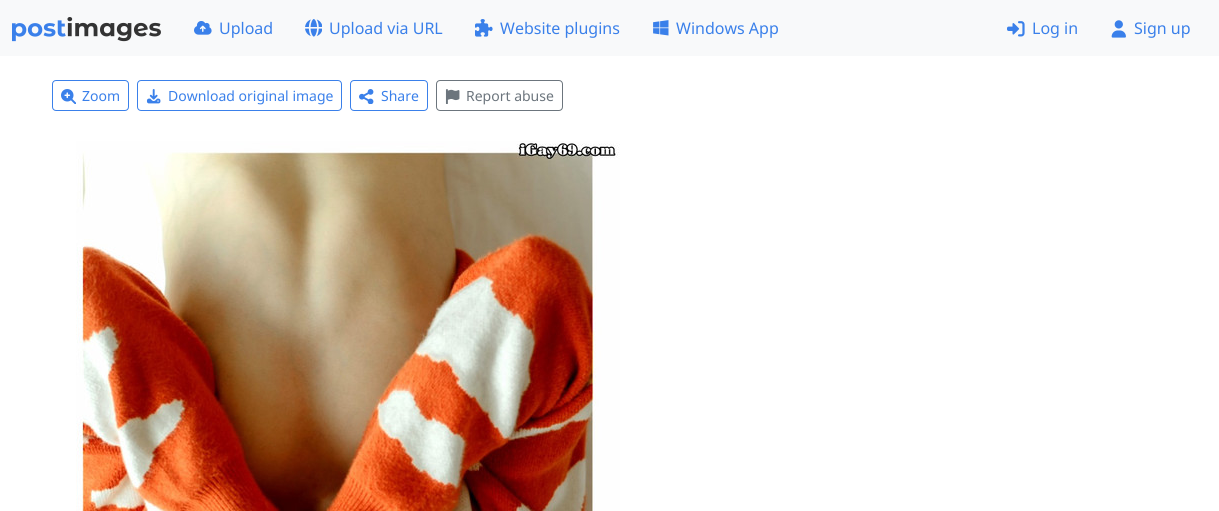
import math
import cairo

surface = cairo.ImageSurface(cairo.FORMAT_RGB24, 1219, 511)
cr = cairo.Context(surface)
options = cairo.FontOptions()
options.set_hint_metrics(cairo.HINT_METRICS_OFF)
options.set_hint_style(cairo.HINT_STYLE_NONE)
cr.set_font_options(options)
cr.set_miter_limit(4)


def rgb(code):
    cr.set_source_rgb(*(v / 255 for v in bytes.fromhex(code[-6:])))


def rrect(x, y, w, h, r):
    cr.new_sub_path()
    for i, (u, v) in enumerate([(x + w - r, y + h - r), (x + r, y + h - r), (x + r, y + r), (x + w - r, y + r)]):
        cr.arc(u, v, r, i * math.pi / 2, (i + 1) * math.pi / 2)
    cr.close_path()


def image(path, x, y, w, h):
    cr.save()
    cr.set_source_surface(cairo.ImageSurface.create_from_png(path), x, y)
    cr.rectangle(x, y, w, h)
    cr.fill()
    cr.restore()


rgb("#ffffff")
cr.paint()
rgb("#f8f9fa")
cr.rectangle(0, 0, 1219, 56)
cr.fill()
image("img/1.png", 12, 17, 149, 25)
image("img/2.png", 194, 21, 18, 14)
image("img/3.png", 305, 19, 17, 18)
image("img/4.png", 475, 19, 18, 18)
image("img/5.png", 653, 20, 16, 16)
image("img/6.png", 1007, 21, 18, 16)
image("img/7.png", 1111, 20, 15, 18)
rrect(52.5, 80.5, 76, 30, 3.5)
rgb("#3a80ea")
cr.set_line_width(1)
cr.stroke()
image("img/8.png", 61, 89, 15, 15)
rrect(137.5, 80.5, 204, 30, 3.5)
cr.stroke()
image("img/9.png", 146, 89, 15, 15)
rrect(350.5, 80.5, 77, 30, 3.5)
cr.stroke()
image("img/10.png", 359, 89, 15, 15)
rrect(436.5, 80.5, 126, 30, 3.5)
rgb("#6c757d")
cr.stroke()
image("img/11.png", 445, 89, 15, 15)
image("img/12.png", 76, 141, 544, 370)
cr.select_font_face("Noto Sans")
cr.set_font_size(16)
rgb("#3a80ea")
for x, y, s in [
    (219, 34, "Upload"),
    (329, 34, "Upload via URL"),
    (500, 34, "Website plugins"),
    (676, 34, "Windows App"),
    (1032, 34, "Log in"),
    (1134, 34, "Sign up"),
]:
    cr.move_to(x, y)
    cr.show_text(s)
cr.set_font_size(14)
for x, y, s in [
    (82, 101, "Zoom"),
    (168, 101, "Download original image"),
    (381, 101, "Share"),
]:
    cr.move_to(x, y)
    cr.show_text(s)
rgb("#6c757d")
cr.move_to(466, 101)
cr.show_text("Report abuse")
surface.write_to_png("page.png")
